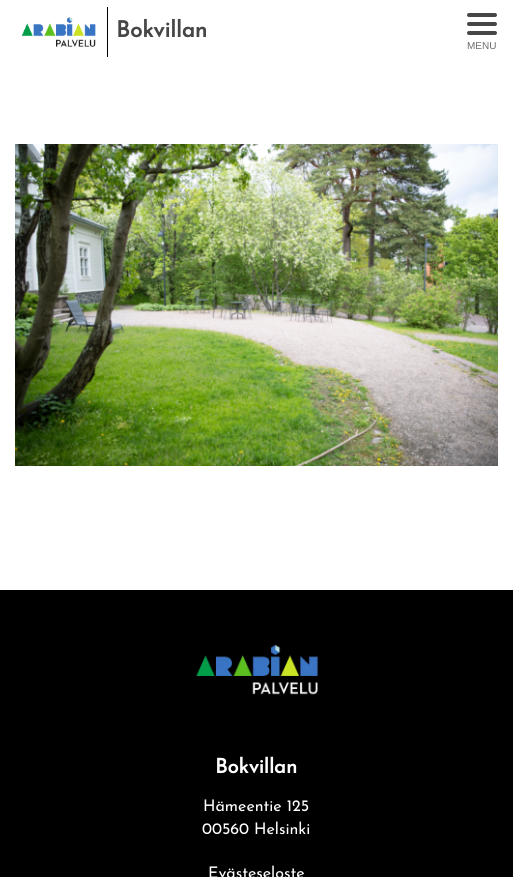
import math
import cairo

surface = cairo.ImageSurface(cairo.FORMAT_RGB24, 513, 877)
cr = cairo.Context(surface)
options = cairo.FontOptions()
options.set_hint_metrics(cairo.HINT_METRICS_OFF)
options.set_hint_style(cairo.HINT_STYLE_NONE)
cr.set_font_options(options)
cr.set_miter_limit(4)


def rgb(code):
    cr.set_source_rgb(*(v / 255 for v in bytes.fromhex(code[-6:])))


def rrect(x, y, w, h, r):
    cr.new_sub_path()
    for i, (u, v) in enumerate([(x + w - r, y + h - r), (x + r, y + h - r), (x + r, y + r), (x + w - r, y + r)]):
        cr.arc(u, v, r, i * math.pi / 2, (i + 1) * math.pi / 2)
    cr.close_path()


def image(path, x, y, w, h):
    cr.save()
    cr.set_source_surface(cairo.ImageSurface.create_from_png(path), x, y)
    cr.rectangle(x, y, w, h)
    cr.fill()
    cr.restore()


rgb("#ffffff")
cr.paint()
image("img/1.png", 21, 17, 75, 30)
rgb("#000000")
cr.rectangle(107, 7, 1, 50)
cr.fill()
rgb("#464646")
rrect(467, 13, 30, 4, 2)
cr.fill()
rrect(467, 22, 30, 4, 2)
cr.fill()
rrect(467, 31, 30, 4, 2)
cr.fill()
image("img/2.png", 15, 144, 483, 322)
rgb("#000000")
cr.rectangle(0, 590, 513, 287)
cr.fill()
image("img/3.png", 196, 644, 122, 51)
cr.select_font_face("Josefin Sans", cairo.FONT_SLANT_NORMAL, cairo.FONT_WEIGHT_BOLD)
cr.set_font_size(22.5)
rgb("#464646")
cr.move_to(116, 37)
cr.show_text("Bokvillan")
cr.select_font_face("Liberation Sans")
cr.set_font_size(10)
rgb("#6b6b6b")
cr.move_to(467, 49)
cr.show_text("MENU")
cr.select_font_face("Josefin Sans", cairo.FONT_SLANT_NORMAL, cairo.FONT_WEIGHT_BOLD)
cr.set_font_size(20.25)
rgb("#ffffff")
cr.move_to(215, 773)
cr.show_text("Bokvillan")
cr.select_font_face("Josefin Sans")
cr.set_font_size(16)
for x, y, s in [
    (203, 811, "Hämeentie 125"),
    (202, 834, "00560 Helsinki"),
    (208, 878, "Evästeseloste"),
]:
    cr.move_to(x, y)
    cr.show_text(s)
surface.write_to_png("page.png")
